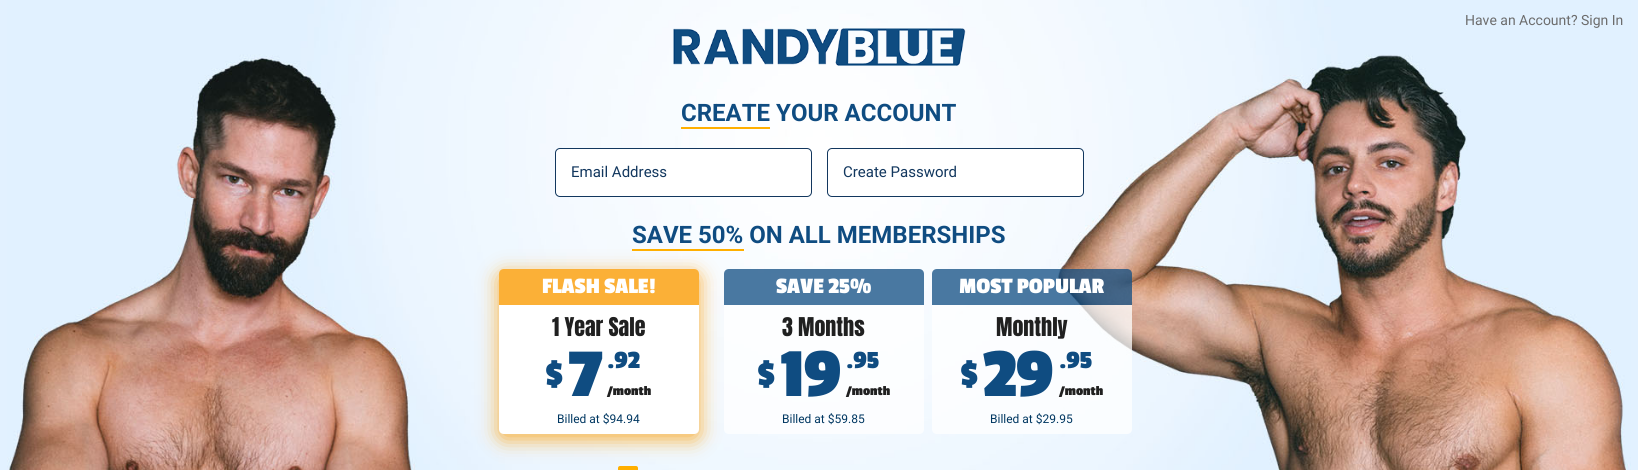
import math
import cairo

surface = cairo.ImageSurface(cairo.FORMAT_RGB24, 1638, 470)
cr = cairo.Context(surface)
options = cairo.FontOptions()
options.set_hint_metrics(cairo.HINT_METRICS_OFF)
options.set_hint_style(cairo.HINT_STYLE_NONE)
cr.set_font_options(options)
cr.set_miter_limit(4)


def rgb(code):
    cr.set_source_rgb(*(v / 255 for v in bytes.fromhex(code[-6:])))


def rrect(x, y, w, h, r):
    cr.new_sub_path()
    for i, (u, v) in enumerate([(x + w - r, y + h - r), (x + r, y + h - r), (x + r, y + r), (x + w - r, y + r)]):
        cr.arc(u, v, r, i * math.pi / 2, (i + 1) * math.pi / 2)
    cr.close_path()


def soft_shadow(x, y, w, h, r, blur, alpha):
    cr.push_group_with_content(cairo.CONTENT_ALPHA)
    cr.set_operator(cairo.OPERATOR_SOURCE)
    for i in range(15, -16, -2):
        e = blur * i / 6
        if min(w, h) + 2 * e > 0:
            cr.set_source_rgba(0, 0, 0, alpha * math.erfc((i - 1) / 8.5) / 2)
            rrect(x - e, y - e, w + 2 * e, h + 2 * e, max(0, min(r + e + blur * .6, min(w, h) / 2 + e)))
            cr.fill()
    cr.mask(cr.pop_group())


def image(path, x, y, w, h):
    cr.save()
    cr.set_source_surface(cairo.ImageSurface.create_from_png(path), x, y)
    cr.rectangle(x, y, w, h)
    cr.fill()
    cr.restore()


rgb("#e2f1ff")
cr.paint()
image("img/1.png", 7, 0, 1624, 470)
image("img/2.png", 673, 28, 293, 38)
rgb("#ffaf00")
cr.rectangle(681, 127, 89, 2)
cr.fill()
rgb("#ffffff")
rrect(555.5, 148.5, 256, 48, 4.5)
cr.fill_preserve()
rgb("#12375e")
cr.set_line_width(1)
cr.stroke()
rgb("#ffffff")
rrect(827.5, 148.5, 256, 48, 4.5)
cr.fill_preserve()
rgb("#12375e")
cr.stroke()
rgb("#ffaf00")
cr.rectangle(632, 249, 112, 2)
cr.fill()
rgb("#fbb037")
soft_shadow(499, 274, 200, 165, 5, 10, 1)
rgb("#fbb037")
cr.new_path()
cr.move_to(504, 269)
cr.line_to(694, 269)
cr.curve_to(697, 269, 699, 271, 699, 274)
cr.line_to(699, 305)
cr.line_to(499, 305)
cr.line_to(499, 274)
cr.curve_to(499, 271, 501, 269, 504, 269)
cr.close_path()
cr.fill()
rgb("#ffffff")
cr.new_path()
cr.move_to(499, 305)
cr.line_to(699, 305)
cr.line_to(699, 429)
cr.curve_to(699, 432, 697, 434, 694, 434)
cr.line_to(504, 434)
cr.curve_to(501, 434, 499, 432, 499, 429)
cr.close_path()
cr.fill()
cr.set_source_rgba(0.059, 0.298, 0.506, 0.75)
cr.new_path()
cr.move_to(729, 269)
cr.line_to(919, 269)
cr.curve_to(922, 269, 924, 271, 924, 274)
cr.line_to(924, 305)
cr.line_to(724, 305)
cr.line_to(724, 274)
cr.curve_to(724, 271, 726, 269, 729, 269)
cr.close_path()
cr.fill()
cr.set_source_rgba(1, 1, 1, 0.75)
cr.new_path()
cr.move_to(724, 305)
cr.line_to(924, 305)
cr.line_to(924, 429)
cr.curve_to(924, 432, 922, 434, 919, 434)
cr.line_to(729, 434)
cr.curve_to(726, 434, 724, 432, 724, 429)
cr.close_path()
cr.fill()
cr.set_source_rgba(0.059, 0.298, 0.506, 0.75)
cr.new_path()
cr.move_to(937, 269)
cr.line_to(1127, 269)
cr.curve_to(1130, 269, 1132, 271, 1132, 274)
cr.line_to(1132, 305)
cr.line_to(932, 305)
cr.line_to(932, 274)
cr.curve_to(932, 271, 934, 269, 937, 269)
cr.close_path()
cr.fill()
cr.set_source_rgba(1, 1, 1, 0.75)
cr.new_path()
cr.move_to(932, 305)
cr.line_to(1132, 305)
cr.line_to(1132, 429)
cr.curve_to(1132, 432, 1130, 434, 1127, 434)
cr.line_to(937, 434)
cr.curve_to(934, 434, 932, 432, 932, 429)
cr.close_path()
cr.fill()
rgb("#ffaf00")
rrect(618, 466, 20, 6, 2)
cr.fill()
cr.select_font_face("Roboto")
cr.set_font_size(14)
rgb("#6c6c6c")
cr.move_to(1465, 25)
cr.show_text("Have an Account? Sign In")
cr.select_font_face("Roboto", cairo.FONT_SLANT_NORMAL, cairo.FONT_WEIGHT_BOLD)
cr.set_font_size(24)
rgb("#0f4c81")
cr.move_to(681, 121)
cr.show_text("CREATE YOUR ACCOUNT")
cr.select_font_face("Roboto")
cr.set_font_size(15)
rgb("#12375e")
cr.move_to(571, 177)
cr.show_text("Email Address")
cr.move_to(843, 177)
cr.show_text("Create Password")
cr.select_font_face("Roboto", cairo.FONT_SLANT_NORMAL, cairo.FONT_WEIGHT_BOLD)
cr.set_font_size(24)
rgb("#0f4c81")
cr.move_to(632, 243)
cr.show_text("SAVE 50% ON ALL MEMBERSHIPS")
cr.select_font_face("Passion One", cairo.FONT_SLANT_NORMAL, cairo.FONT_WEIGHT_BOLD)
cr.set_font_size(23)
rgb("#ffffff")
cr.move_to(542, 293)
cr.show_text("FLASH SALE!")
cr.select_font_face("Anton")
cr.set_font_size(22)
rgb("#202020")
cr.move_to(552, 336)
cr.show_text("1 Year Sale")
cr.select_font_face("Passion One", cairo.FONT_SLANT_NORMAL, cairo.FONT_WEIGHT_BOLD)
cr.set_font_size(35)
rgb("#0f4c81")
cr.move_to(545, 385)
cr.show_text("$")
cr.set_font_size(72)
cr.move_to(569, 396)
cr.show_text("7")
cr.set_font_size(26)
cr.move_to(607, 368)
cr.show_text(".92")
cr.set_font_size(14)
rgb("#202020")
cr.move_to(607, 395)
cr.show_text("/month")
cr.select_font_face("Roboto")
cr.set_font_size(12)
rgb("#003761")
cr.move_to(557, 423)
cr.show_text("Billed at $94.94")
cr.select_font_face("Passion One", cairo.FONT_SLANT_NORMAL, cairo.FONT_WEIGHT_BOLD)
cr.set_font_size(23)
rgb("#ffffff")
cr.move_to(776, 293)
cr.show_text("SAVE 25%")
cr.select_font_face("Anton")
cr.set_font_size(22)
rgb("#202020")
cr.move_to(782, 336)
cr.show_text("3 Months")
cr.select_font_face("Passion One", cairo.FONT_SLANT_NORMAL, cairo.FONT_WEIGHT_BOLD)
cr.set_font_size(35)
rgb("#0f4c81")
cr.move_to(757, 385)
cr.show_text("$")
cr.set_font_size(72)
cr.move_to(781, 396)
cr.show_text("19")
cr.set_font_size(26)
cr.move_to(846, 368)
cr.show_text(".95")
cr.set_font_size(14)
rgb("#202020")
cr.move_to(846, 395)
cr.show_text("/month")
cr.select_font_face("Roboto")
cr.set_font_size(12)
rgb("#003761")
cr.move_to(782, 423)
cr.show_text("Billed at $59.85")
cr.select_font_face("Passion One", cairo.FONT_SLANT_NORMAL, cairo.FONT_WEIGHT_BOLD)
cr.set_font_size(23)
rgb("#ffffff")
cr.move_to(959, 293)
cr.show_text("MOST POPULAR")
cr.select_font_face("Anton")
cr.set_font_size(22)
rgb("#202020")
cr.move_to(996, 336)
cr.show_text("Monthly")
cr.select_font_face("Passion One", cairo.FONT_SLANT_NORMAL, cairo.FONT_WEIGHT_BOLD)
cr.set_font_size(35)
rgb("#0f4c81")
cr.move_to(960, 385)
cr.show_text("$")
cr.set_font_size(72)
cr.move_to(983, 396)
cr.show_text("29")
cr.set_font_size(26)
cr.move_to(1059, 368)
cr.show_text(".95")
cr.set_font_size(14)
rgb("#202020")
cr.move_to(1059, 395)
cr.show_text("/month")
cr.select_font_face("Roboto")
cr.set_font_size(12)
rgb("#003761")
cr.move_to(990, 423)
cr.show_text("Billed at $29.95")
surface.write_to_png("page.png")
